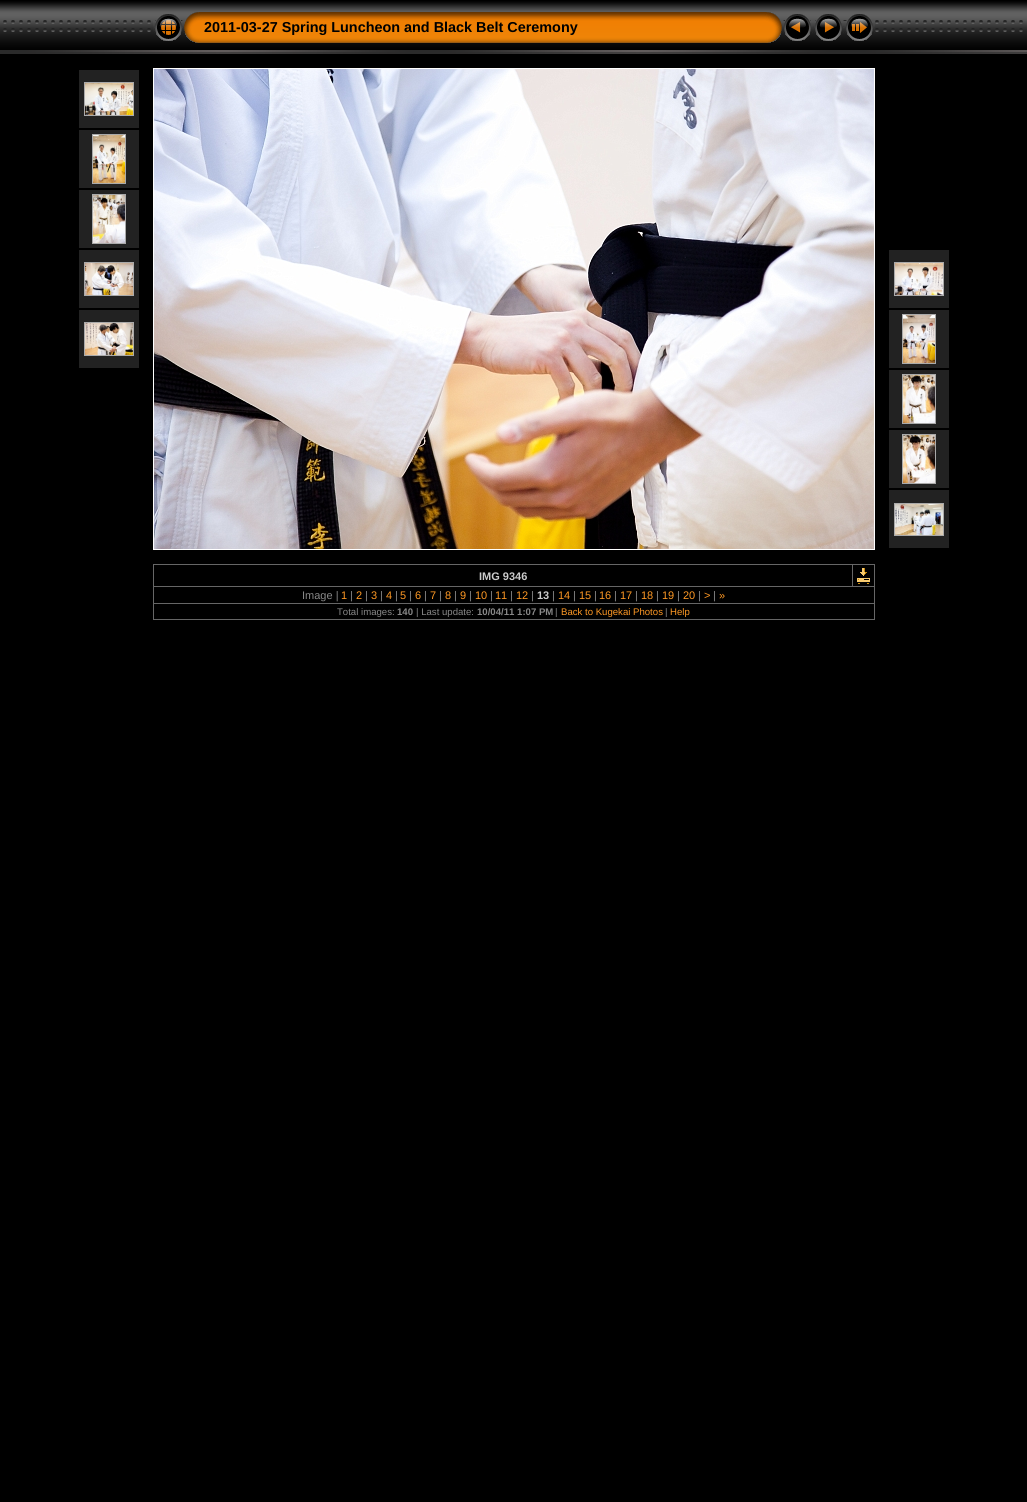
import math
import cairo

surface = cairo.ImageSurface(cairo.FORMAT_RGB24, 1027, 1502)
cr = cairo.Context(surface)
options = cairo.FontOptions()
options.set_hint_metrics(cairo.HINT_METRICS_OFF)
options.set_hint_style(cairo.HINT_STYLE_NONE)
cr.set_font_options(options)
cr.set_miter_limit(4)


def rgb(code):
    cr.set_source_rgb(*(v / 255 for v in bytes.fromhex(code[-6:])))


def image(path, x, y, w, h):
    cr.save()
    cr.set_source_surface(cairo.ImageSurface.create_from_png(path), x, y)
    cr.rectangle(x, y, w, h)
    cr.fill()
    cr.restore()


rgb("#000000")
cr.paint()
image("img/1.png", 0, 1, 1027, 53)
image("img/2.png", 153, 14, 31, 27)
image("img/3.png", 184, 12, 20, 31)
image("img/4.png", 204, 12, 558, 31)
image("img/5.png", 762, 12, 20, 31)
image("img/6.png", 782, 14, 31, 27)
image("img/7.png", 813, 14, 31, 27)
image("img/8.png", 844, 14, 31, 27)
rgb("#222222")
cr.rectangle(79, 70, 60, 58)
cr.fill()
cr.rectangle(84.5, 82.5, 49, 33)
rgb("#aaaaaa")
cr.set_line_width(1)
cr.stroke()
image("img/9.png", 85, 83, 48, 32)
rgb("#222222")
cr.rectangle(79, 130, 60, 58)
cr.fill()
cr.rectangle(92.5, 134.5, 33, 49)
rgb("#aaaaaa")
cr.stroke()
image("img/10.png", 93, 135, 32, 48)
rgb("#222222")
cr.rectangle(79, 190, 60, 58)
cr.fill()
cr.rectangle(92.5, 194.5, 33, 49)
rgb("#aaaaaa")
cr.stroke()
image("img/11.png", 93, 195, 32, 48)
rgb("#222222")
cr.rectangle(79, 250, 60, 58)
cr.fill()
cr.rectangle(84.5, 262.5, 49, 33)
rgb("#aaaaaa")
cr.stroke()
image("img/12.png", 85, 263, 48, 32)
rgb("#222222")
cr.rectangle(79, 310, 60, 58)
cr.fill()
cr.rectangle(84.5, 322.5, 49, 33)
rgb("#aaaaaa")
cr.stroke()
image("img/13.png", 85, 323, 48, 32)
cr.rectangle(153.5, 68.5, 721, 481)
rgb("#ffffff")
cr.stroke()
image("img/14.png", 154, 69, 720, 480)
rgb("#222222")
cr.rectangle(889, 250, 60, 58)
cr.fill()
cr.rectangle(894.5, 262.5, 49, 33)
rgb("#aaaaaa")
cr.stroke()
image("img/15.png", 895, 263, 48, 32)
rgb("#222222")
cr.rectangle(889, 310, 60, 58)
cr.fill()
cr.rectangle(902.5, 314.5, 33, 49)
rgb("#aaaaaa")
cr.stroke()
image("img/16.png", 903, 315, 32, 48)
rgb("#222222")
cr.rectangle(889, 370, 60, 58)
cr.fill()
cr.rectangle(902.5, 374.5, 33, 49)
rgb("#aaaaaa")
cr.stroke()
image("img/17.png", 903, 375, 32, 48)
rgb("#222222")
cr.rectangle(889, 430, 60, 58)
cr.fill()
cr.rectangle(902.5, 434.5, 33, 49)
rgb("#aaaaaa")
cr.stroke()
image("img/18.png", 903, 435, 32, 48)
rgb("#222222")
cr.rectangle(889, 490, 60, 58)
cr.fill()
cr.rectangle(894.5, 503.5, 49, 32)
rgb("#aaaaaa")
cr.stroke()
image("img/19.png", 895, 504, 48, 31)
for x, y, w, h, color in [
    (153, 564, 722, 1, "#666666"),
    (874, 564, 1, 56, "#666666"),
    (153, 619, 722, 1, "#666666"),
    (153, 564, 1, 56, "#666666"),
    (153, 586, 722, 1, "#666666"),
    (852, 564, 1, 23, "#666666"),
]:
    rgb(color)
    cr.rectangle(x, y, w, h)
    cr.fill()
image("img/20.png", 857, 568, 13, 16)
cr.rectangle(153, 603, 722, 1)
cr.fill()
cr.select_font_face("Liberation Sans", cairo.FONT_SLANT_NORMAL, cairo.FONT_WEIGHT_BOLD)
cr.set_font_size(14.4)
rgb("#000000")
cr.move_to(204, 32)
cr.show_text("2011-03-27 Spring Luncheon and Black Belt Ceremony")
cr.set_font_size(11)
rgb("#cccccc")
cr.move_to(479, 580)
cr.show_text("IMG 9346")
cr.select_font_face("Liberation Sans")
rgb("#888888")
cr.move_to(302, 599)
cr.show_text("Image |")
rgb("#ff9924")
cr.move_to(341, 599)
cr.show_text("1")
rgb("#888888")
cr.move_to(350, 599)
cr.show_text("|")
rgb("#ff9924")
cr.move_to(356, 599)
cr.show_text("2")
rgb("#888888")
cr.move_to(365, 599)
cr.show_text("|")
rgb("#ff9924")
cr.move_to(371, 599)
cr.show_text("3")
rgb("#888888")
cr.move_to(380, 599)
cr.show_text("|")
rgb("#ff9924")
cr.move_to(386, 599)
cr.show_text("4")
rgb("#888888")
cr.move_to(395, 599)
cr.show_text("|")
rgb("#ff9924")
cr.move_to(400, 599)
cr.show_text("5")
rgb("#888888")
cr.move_to(409, 599)
cr.show_text("|")
rgb("#ff9924")
cr.move_to(415, 599)
cr.show_text("6")
rgb("#888888")
cr.move_to(424, 599)
cr.show_text("|")
rgb("#ff9924")
cr.move_to(430, 599)
cr.show_text("7")
rgb("#888888")
cr.move_to(439, 599)
cr.show_text("|")
rgb("#ff9924")
cr.move_to(445, 599)
cr.show_text("8")
rgb("#888888")
cr.move_to(454, 599)
cr.show_text("|")
rgb("#ff9924")
cr.move_to(460, 599)
cr.show_text("9")
rgb("#888888")
cr.move_to(469, 599)
cr.show_text("|")
rgb("#ff9924")
cr.move_to(475, 599)
cr.show_text("10")
rgb("#888888")
cr.move_to(490, 599)
cr.show_text("|")
rgb("#ff9924")
cr.move_to(495, 599)
cr.show_text("11")
rgb("#888888")
cr.move_to(510, 599)
cr.show_text("|")
rgb("#ff9924")
cr.move_to(516, 599)
cr.show_text("12")
rgb("#888888")
cr.move_to(531, 599)
cr.show_text("|")
cr.select_font_face("Liberation Sans", cairo.FONT_SLANT_NORMAL, cairo.FONT_WEIGHT_BOLD)
rgb("#cccccc")
cr.move_to(537, 599)
cr.show_text("13")
cr.select_font_face("Liberation Sans")
rgb("#888888")
cr.move_to(552, 599)
cr.show_text("|")
rgb("#ff9924")
cr.move_to(558, 599)
cr.show_text("14")
rgb("#888888")
cr.move_to(573, 599)
cr.show_text("|")
rgb("#ff9924")
cr.move_to(579, 599)
cr.show_text("15")
rgb("#888888")
cr.move_to(594, 599)
cr.show_text("|")
rgb("#ff9924")
cr.move_to(599, 599)
cr.show_text("16")
rgb("#888888")
cr.move_to(614, 599)
cr.show_text("|")
rgb("#ff9924")
cr.move_to(620, 599)
cr.show_text("17")
rgb("#888888")
cr.move_to(635, 599)
cr.show_text("|")
rgb("#ff9924")
cr.move_to(641, 599)
cr.show_text("18")
rgb("#888888")
cr.move_to(656, 599)
cr.show_text("|")
rgb("#ff9924")
cr.move_to(662, 599)
cr.show_text("19")
rgb("#888888")
cr.move_to(677, 599)
cr.show_text("|")
rgb("#ff9924")
cr.move_to(683, 599)
cr.show_text("20")
rgb("#888888")
cr.move_to(698, 599)
cr.show_text("|")
rgb("#ff9924")
cr.move_to(704, 599)
cr.show_text(">")
rgb("#888888")
cr.move_to(713, 599)
cr.show_text("|")
rgb("#ff9924")
cr.move_to(719, 599)
cr.show_text("»")
cr.set_font_size(9.6)
rgb("#888888")
cr.move_to(337, 615)
cr.show_text("Total images:")
cr.select_font_face("Liberation Sans", cairo.FONT_SLANT_NORMAL, cairo.FONT_WEIGHT_BOLD)
cr.move_to(397, 615)
cr.show_text("140")
cr.select_font_face("Liberation Sans")
cr.move_to(416, 615)
cr.show_text("| Last update:")
cr.select_font_face("Liberation Sans", cairo.FONT_SLANT_NORMAL, cairo.FONT_WEIGHT_BOLD)
cr.move_to(477, 615)
cr.show_text("10/04/11 1:07 PM")
cr.select_font_face("Liberation Sans")
cr.move_to(555, 615)
cr.show_text("|")
rgb("#ff9924")
cr.move_to(561, 615)
cr.show_text("Back to Kugekai Photos")
rgb("#888888")
cr.move_to(665, 615)
cr.show_text("|")
rgb("#ff9924")
cr.move_to(670, 615)
cr.show_text("Help")
surface.write_to_png("page.png")
